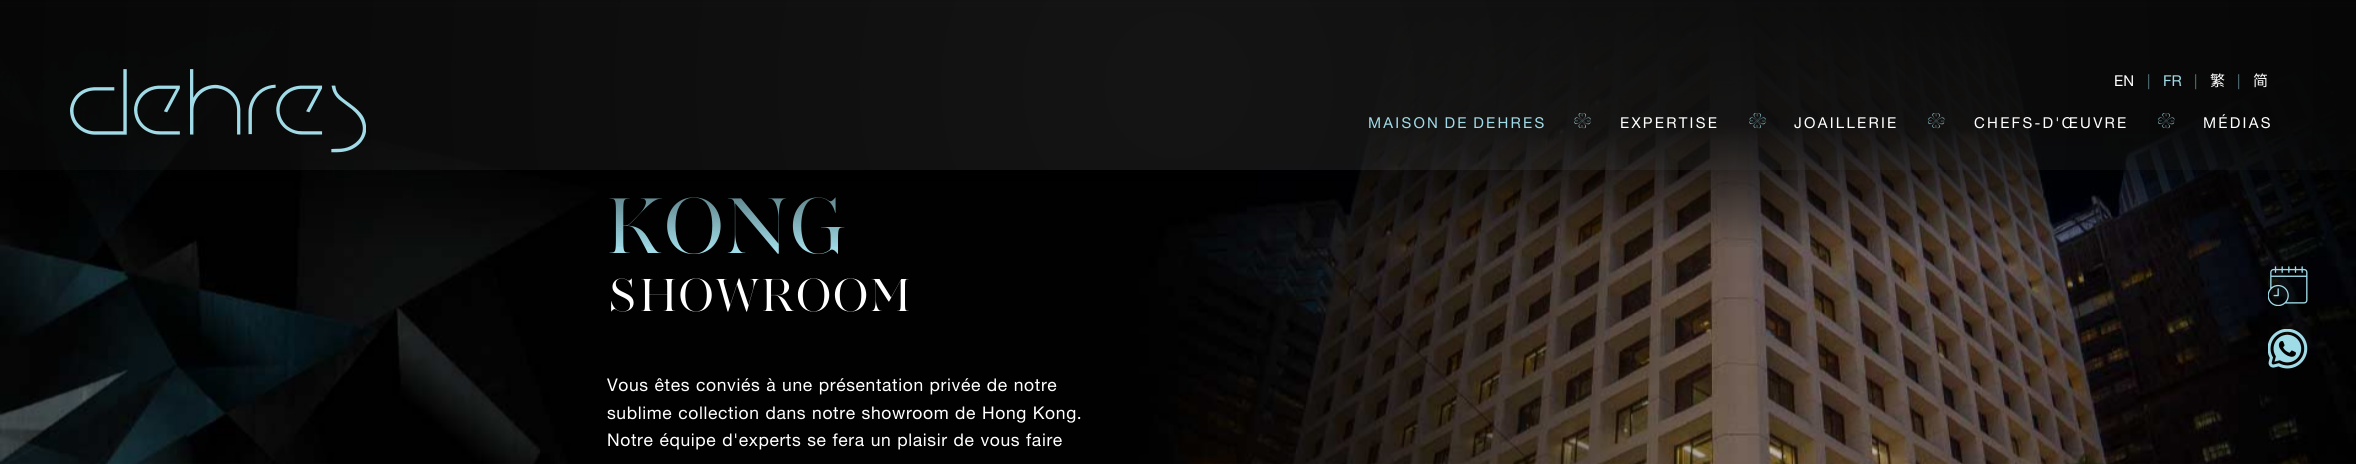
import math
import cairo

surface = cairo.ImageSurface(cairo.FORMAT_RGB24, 2356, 464)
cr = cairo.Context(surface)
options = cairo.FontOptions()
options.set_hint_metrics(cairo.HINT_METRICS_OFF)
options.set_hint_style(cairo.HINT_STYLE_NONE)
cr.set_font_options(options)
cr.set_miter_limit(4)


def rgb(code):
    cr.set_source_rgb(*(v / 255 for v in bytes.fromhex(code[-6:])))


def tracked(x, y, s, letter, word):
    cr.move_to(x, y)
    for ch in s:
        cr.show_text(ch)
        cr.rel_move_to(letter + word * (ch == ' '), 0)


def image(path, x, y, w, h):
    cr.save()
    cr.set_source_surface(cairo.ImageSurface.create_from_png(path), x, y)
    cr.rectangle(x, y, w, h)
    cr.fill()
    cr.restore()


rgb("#ffffff")
cr.paint()
image("img/6.png", 0, 7, 2356, 457)
cr.set_source_rgba(0, 0, 0, 0.15)
cr.rectangle(0, 7, 2323, 163)
cr.fill()
image("img/7.png", 2268, 266, 40, 40)
image("img/8.png", 2268, 329, 40, 40)
cr.select_font_face("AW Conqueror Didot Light")
cr.set_font_size(81)
rgb("#a0dbe7")
tracked(607, 253, "KONG", 1, 0)
gradient = cairo.LinearGradient(1178, 0, 1178, 250)
gradient.add_color_stop_rgba(0, 0, 0, 0, 1)
gradient.add_color_stop_rgba(0.5, 0, 0, 0, 0.9)
gradient.add_color_stop_rgba(1, 0, 0, 0, 0)
cr.set_source(gradient)
cr.rectangle(0, 0, 2356, 247)
cr.fill()
gradient = cairo.RadialGradient(1178, 85, 0, 1178, 85, 1666)
gradient.add_color_stop_rgba(0, 1, 1, 1, 0.08)
gradient.add_color_stop_rgba(1, 0, 0, 0, 0.08)
cr.set_source(gradient)
cr.rectangle(0, 0, 2356, 170)
cr.fill()
cr.select_font_face("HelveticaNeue")
cr.set_font_size(15)
rgb("#557278")
for x, y, s in [
    (2237, 86, "|"),
    (2194, 86, "|"),
    (2147, 86, "|"),
]:
    cr.move_to(x, y)
    cr.show_text(s)
cr.select_font_face("Noto Sans SC")
rgb("#ffffff")
cr.move_to(2253, 86)
cr.show_text("简")
cr.select_font_face("Noto Sans TC")
cr.move_to(2210, 86)
cr.show_text("繁")
cr.select_font_face("HelveticaNeue")
rgb("#a0dbe7")
cr.move_to(2163, 86)
cr.show_text("FR")
rgb("#ffffff")
cr.move_to(2114, 86)
cr.show_text("EN")
image("img/1.png", 70, 69, 296, 84)
tracked(2203, 128, "MÉDIAS", 2.25, 0)
image("img/5.png", 2158, 113, 17, 16)
tracked(1974, 128, "CHEFS-D'ŒUVRE", 2.25, 0)
image("img/4.png", 1928, 113, 17, 16)
tracked(1794, 128, "JOAILLERIE", 2.25, 0)
image("img/3.png", 1749, 113, 17, 16)
tracked(1620, 128, "EXPERTISE", 2.25, 0)
image("img/2.png", 1574, 113, 17, 16)
rgb("#a0dbe7")
tracked(1368, 128, "MAISON DE DEHRES", 2.25, -2)
cr.select_font_face("AW Conqueror Didot Light")
cr.set_font_size(47.5)
rgb("#ffffff")
tracked(607, 311, "SHOWROOM", 1.5, 0)
cr.select_font_face("HelveticaNeue")
cr.set_font_size(17.5)
for x, y, s in [
    (607, 391, "Vous êtes conviés à une présentation privée de notre"),
    (607, 419, "sublime collection dans notre showroom de Hong Kong."),
    (607, 446, "Notre équipe d'experts se fera un plaisir de vous faire"),
]:
    tracked(x, y, s, 0.62, 0.4)
surface.write_to_png("page.png")
